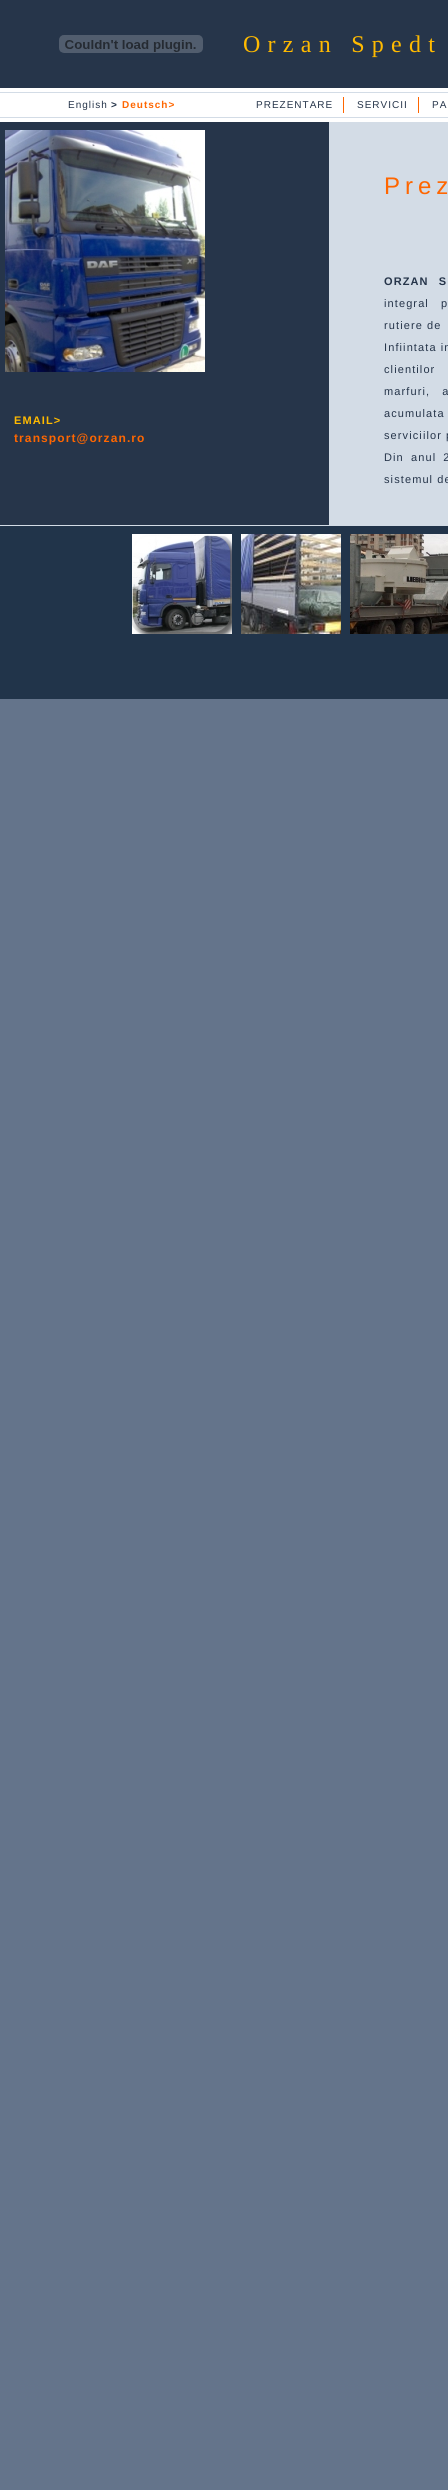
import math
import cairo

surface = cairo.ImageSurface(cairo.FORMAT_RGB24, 448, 2490)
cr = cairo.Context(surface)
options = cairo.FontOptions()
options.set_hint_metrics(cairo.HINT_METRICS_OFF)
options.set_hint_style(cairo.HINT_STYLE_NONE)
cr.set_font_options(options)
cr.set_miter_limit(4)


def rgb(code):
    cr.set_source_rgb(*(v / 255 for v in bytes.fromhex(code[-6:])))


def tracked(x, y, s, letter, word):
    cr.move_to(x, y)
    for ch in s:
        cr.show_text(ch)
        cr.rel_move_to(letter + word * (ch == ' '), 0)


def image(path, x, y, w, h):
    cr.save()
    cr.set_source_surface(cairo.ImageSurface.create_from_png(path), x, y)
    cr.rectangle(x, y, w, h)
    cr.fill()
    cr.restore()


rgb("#64748b")
cr.paint()
rgb("#26354a")
cr.rectangle(0, 0, 448, 88)
cr.fill()
image("img/1.png", 59, 35, 144, 18)
for x, y, w, h, color in [
    (0, 88, 448, 4, "#ffffff"),
    (0, 92, 448, 1, "#d3dce6"),
    (0, 93, 448, 24, "#ffffff"),
    (343, 97, 1, 16, "#ff6600"),
    (418, 97, 1, 16, "#ff6600"),
    (0, 117, 448, 1, "#d3dce6"),
    (0, 118, 448, 4, "#ffffff"),
    (329, 122, 119, 403, "#d3dce6"),
    (0, 122, 329, 403, "#26354a"),
]:
    rgb(color)
    cr.rectangle(x, y, w, h)
    cr.fill()
image("img/2.png", 5, 130, 200, 242)
rgb("#d3dce6")
cr.rectangle(0, 525, 448, 1)
cr.fill()
rgb("#21344a")
cr.rectangle(0, 526, 448, 173)
cr.fill()
image("img/3.png", 132, 534, 100, 100)
image("img/4.png", 241, 534, 100, 100)
image("img/5.png", 350, 534, 98, 100)
cr.select_font_face("Liberation Serif")
cr.set_font_size(24)
rgb("#ffba00")
tracked(243, 52, "Orzan Spedt", 7.25, 0)
cr.select_font_face("Liberation Sans")
cr.set_font_size(10)
rgb("#26354a")
tracked(68, 108, "English", 1, 0)
cr.select_font_face("Liberation Sans", cairo.FONT_SLANT_NORMAL, cairo.FONT_WEIGHT_BOLD)
tracked(111, 108, ">", 1, 0)
rgb("#ff6600")
tracked(122, 108, "Deutsch>", 1, 0)
cr.select_font_face("Liberation Sans")
rgb("#26354a")
for x, y, s in [
    (256, 108, "PREZENTARE"),
    (357, 108, "SERVICII"),
    (432, 108, "PA"),
]:
    tracked(x, y, s, 1, 0)
cr.select_font_face("Liberation Sans", cairo.FONT_SLANT_NORMAL, cairo.FONT_WEIGHT_BOLD)
cr.set_font_size(11)
rgb("#ffba00")
tracked(14, 424, "EMAIL>", 1.1, 0)
cr.set_font_size(12)
rgb("#ff6600")
tracked(14, 442, "transport@orzan.ro", 1.1, 0)
cr.select_font_face("Liberation Sans")
cr.set_font_size(24)
tracked(384, 194, "Prez", 5, 0)
cr.select_font_face("Liberation Sans", cairo.FONT_SLANT_NORMAL, cairo.FONT_WEIGHT_BOLD)
cr.set_font_size(11)
rgb("#26354a")
tracked(384, 285, "ORZAN S", 1.1, 6)
cr.select_font_face("Liberation Sans")
tracked(384, 307, "integral p", 1.1, 8)
tracked(384, 329, "rutiere de", 1.1, 0)
tracked(384, 351, "Infiintata in", 1.1, 0)
tracked(384, 373, "clientilor", 1.1, 7)
tracked(384, 395, "marfuri, a", 1.1, 8)
tracked(384, 417, "acumulata", 1.1, 9)
tracked(384, 439, "serviciilor p", 1.1, 0)
tracked(384, 461, "Din anul 2", 1.1, 3)
tracked(384, 483, "sistemul de", 1.1, 0)
surface.write_to_png("page.png")
